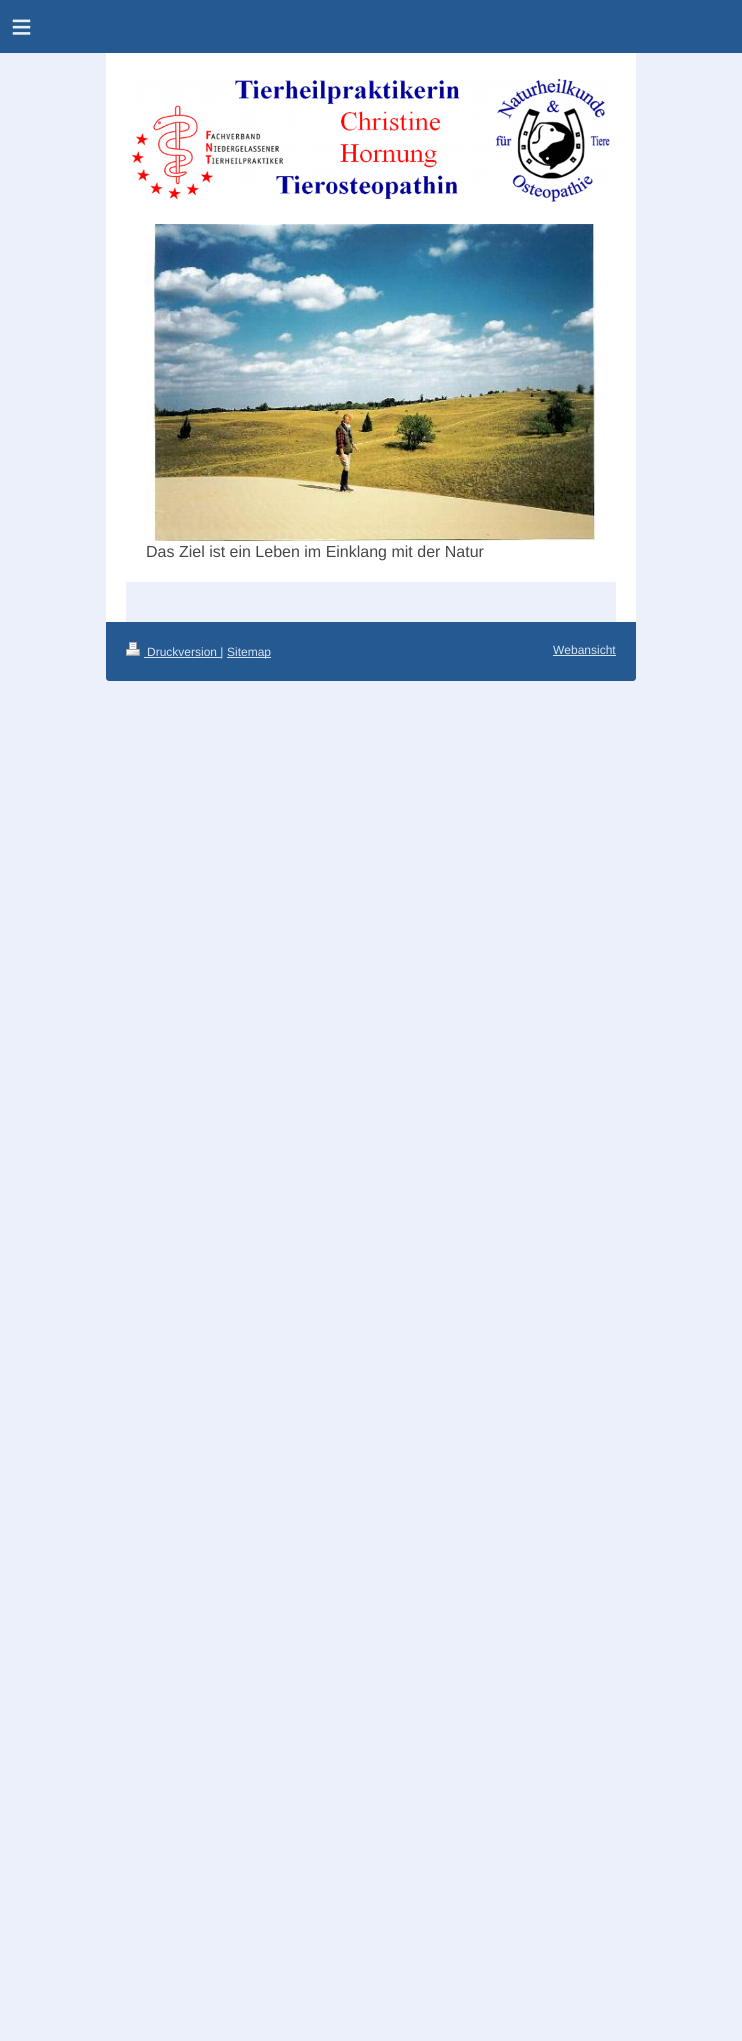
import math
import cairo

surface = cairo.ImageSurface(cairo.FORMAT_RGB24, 742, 2041)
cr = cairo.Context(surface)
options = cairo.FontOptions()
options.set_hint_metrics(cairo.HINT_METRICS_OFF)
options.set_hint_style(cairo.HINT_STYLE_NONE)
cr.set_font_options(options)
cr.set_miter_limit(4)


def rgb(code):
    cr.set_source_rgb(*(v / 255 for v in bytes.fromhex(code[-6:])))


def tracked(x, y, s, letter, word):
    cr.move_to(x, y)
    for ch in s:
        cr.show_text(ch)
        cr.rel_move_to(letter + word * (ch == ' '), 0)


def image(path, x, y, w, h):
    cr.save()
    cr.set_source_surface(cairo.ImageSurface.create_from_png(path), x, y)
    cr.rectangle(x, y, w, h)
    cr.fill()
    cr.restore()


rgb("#ecf0fb")
cr.paint()
rgb("#ffffff")
cr.new_path()
cr.move_to(106, 30)
cr.line_to(636, 30)
cr.line_to(636, 678)
cr.curve_to(636, 679.5, 634.5, 681, 633, 681)
cr.line_to(109, 681)
cr.curve_to(107.5, 681, 106, 679.5, 106, 678)
cr.close_path()
cr.fill()
rgb("#245992")
cr.rectangle(0, 0, 742, 53)
cr.fill()
image("img/1.png", 131, 78, 479, 124)
image("img/2.png", 146, 224, 450, 317)
rgb("#ecf0fb")
cr.rectangle(126, 582, 490, 40)
cr.fill()
rgb("#245992")
cr.new_path()
cr.move_to(106, 622)
cr.line_to(636, 622)
cr.line_to(636, 678)
cr.curve_to(636, 679.5, 634.5, 681, 633, 681)
cr.line_to(109, 681)
cr.curve_to(107.5, 681, 106, 679.5, 106, 678)
cr.close_path()
cr.fill()
image("img/3.png", 126, 642, 14, 14)
for x, y, w, h, color in [
    (144, 657, 77, 1, "#d9e4f0"),
    (227, 657, 44, 1, "#d9e4f0"),
    (553, 655, 63, 1, "#d9e4f0"),
]:
    rgb(color)
    cr.rectangle(x, y, w, h)
    cr.fill()
cr.select_font_face("Liberation Sans")
cr.set_font_size(36)
rgb("#e9eef4")
tracked(11, 39, "≡", 10, 0)
cr.set_font_size(16)
rgb("#474747")
cr.move_to(146, 557)
cr.show_text("Das Ziel ist ein Leben im Einklang mit der Natur")
cr.set_font_size(12)
rgb("#d9e4f0")
for x, y, s in [
    (147, 656, "Druckversion |"),
    (227, 656, "Sitemap"),
    (553, 654, "Webansicht"),
]:
    cr.move_to(x, y)
    cr.show_text(s)
surface.write_to_png("page.png")
